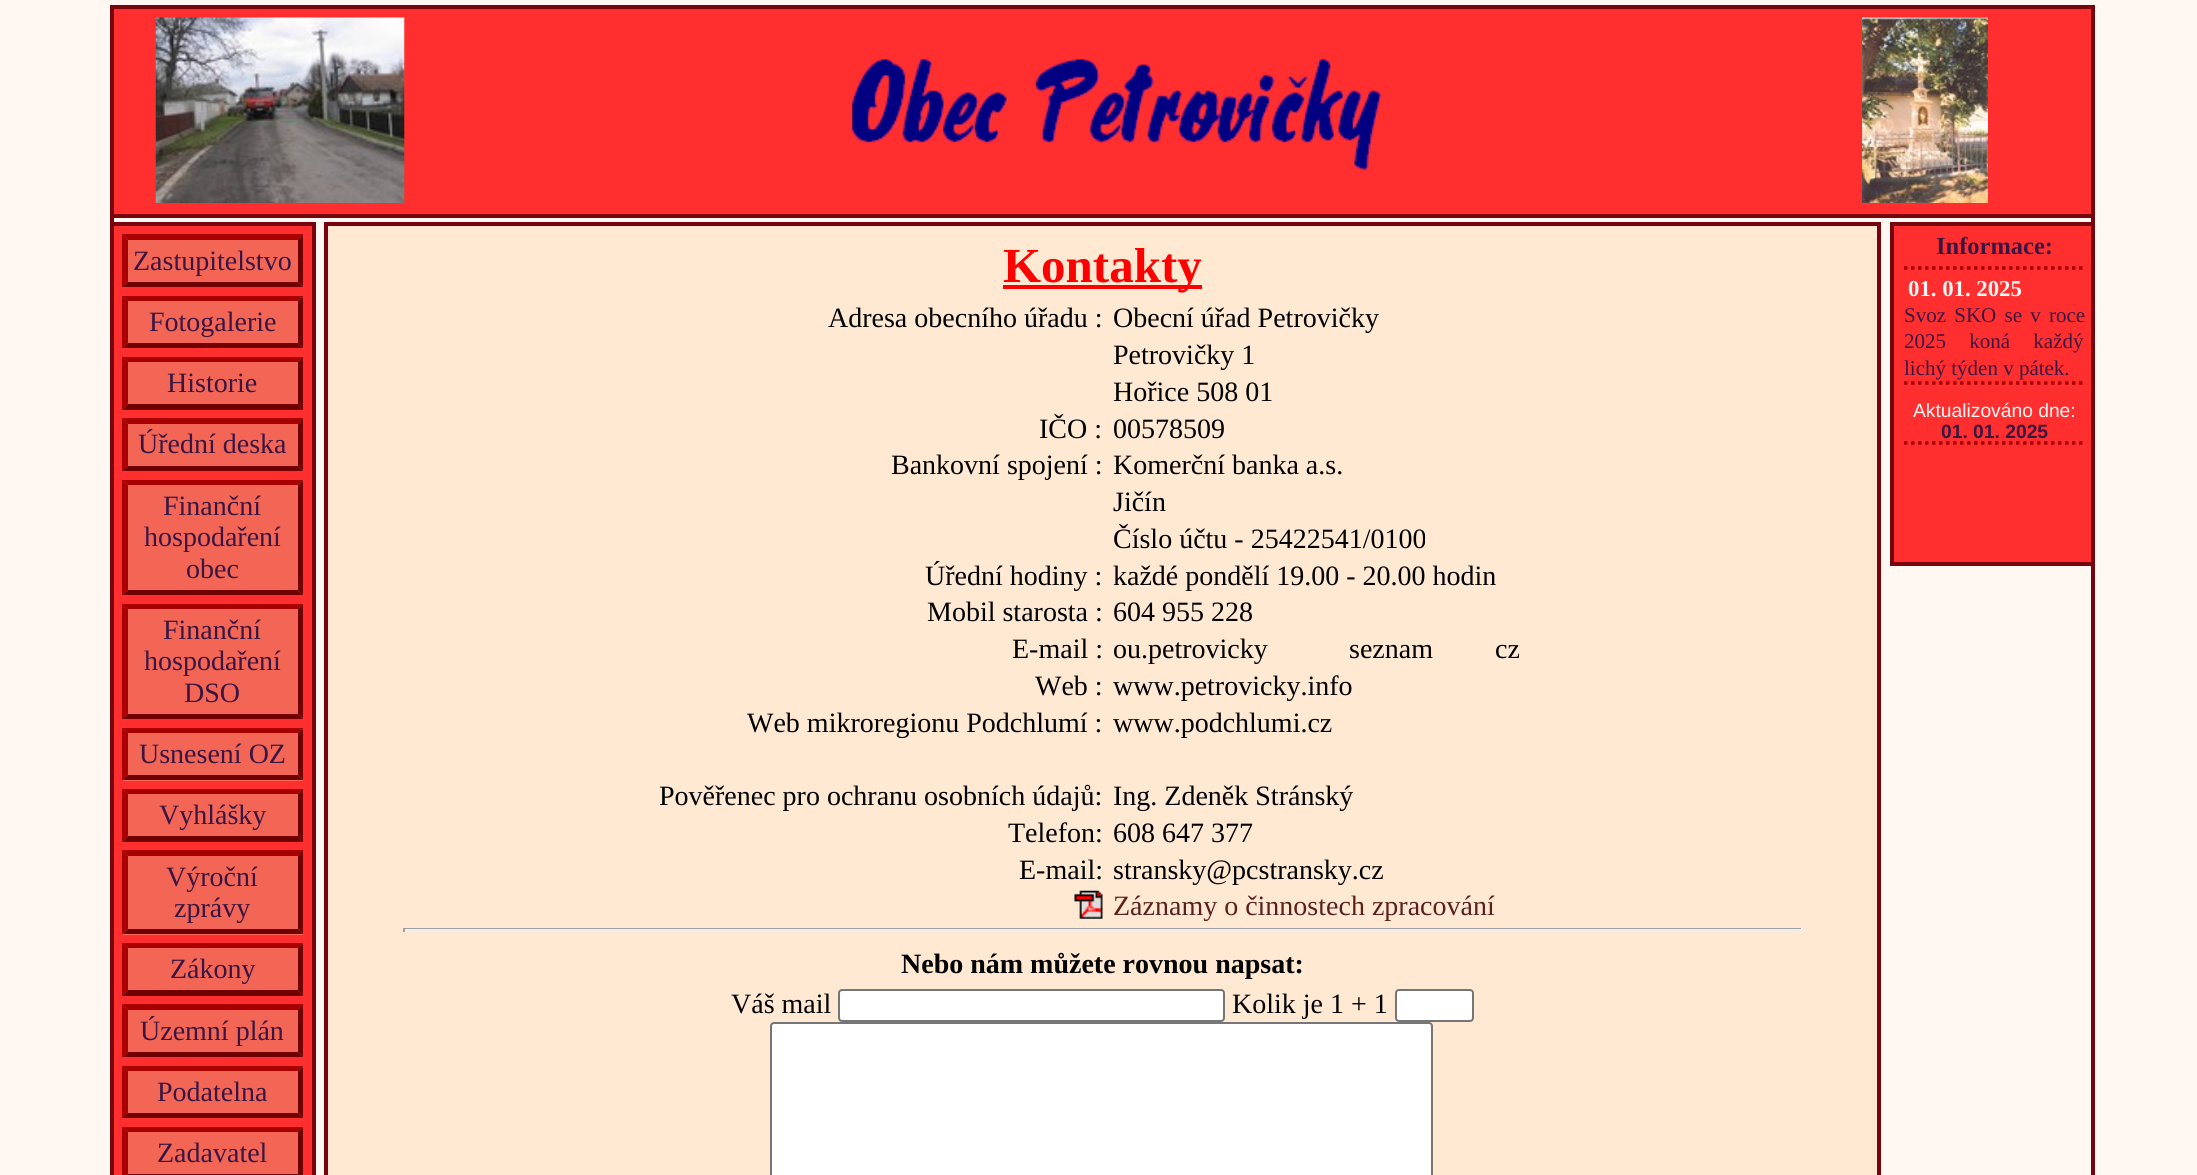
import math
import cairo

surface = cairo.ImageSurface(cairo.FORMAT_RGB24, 2197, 1175)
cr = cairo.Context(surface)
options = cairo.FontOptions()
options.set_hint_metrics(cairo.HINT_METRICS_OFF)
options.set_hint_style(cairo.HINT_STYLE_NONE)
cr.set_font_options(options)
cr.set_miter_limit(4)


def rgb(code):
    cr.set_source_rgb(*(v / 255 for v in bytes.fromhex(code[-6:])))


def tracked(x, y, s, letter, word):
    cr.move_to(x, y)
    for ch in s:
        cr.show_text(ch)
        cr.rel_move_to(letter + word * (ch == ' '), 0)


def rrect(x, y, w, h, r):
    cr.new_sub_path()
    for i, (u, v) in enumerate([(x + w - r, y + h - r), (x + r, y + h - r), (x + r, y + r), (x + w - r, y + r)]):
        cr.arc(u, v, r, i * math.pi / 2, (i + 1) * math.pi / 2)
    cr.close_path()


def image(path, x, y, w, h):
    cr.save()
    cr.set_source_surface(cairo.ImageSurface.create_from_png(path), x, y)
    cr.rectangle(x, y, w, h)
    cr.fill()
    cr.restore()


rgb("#fff8f2")
cr.paint()
cr.rectangle(112, 7, 1981, 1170)
rgb("#76050e")
cr.set_line_width(4)
cr.stroke()
rgb("#ff2f2f")
cr.rectangle(114, 9, 1977, 205)
cr.fill()
rgb("#76050e")
cr.rectangle(114, 214, 1977, 4)
cr.fill()
image("img/1.png", 155, 17, 250, 186)
image("img/2.png", 851, 59, 531, 112)
image("img/3.png", 1862, 17, 126, 186)
for x, y, w, h, color in [
    (114, 226, 198, 949, "#ff2f2f"),
    (114, 222, 201, 4, "#76050e"),
    (312, 222, 4, 953, "#76050e"),
    (123, 235, 180, 52, "#f36656"),
]:
    rgb(color)
    cr.rectangle(x, y, w, h)
    cr.fill()
rgb("#a80000")
cr.new_path()
cr.move_to(122, 234)
cr.line_to(303, 234)
cr.line_to(298, 240)
cr.line_to(128, 240)
cr.close_path()
cr.fill()
rgb("#700000")
cr.new_path()
cr.move_to(303, 234)
cr.line_to(303, 287)
cr.line_to(298, 282)
cr.line_to(298, 240)
cr.close_path()
cr.fill()
cr.new_path()
cr.move_to(303, 287)
cr.line_to(122, 287)
cr.line_to(128, 282)
cr.line_to(298, 282)
cr.close_path()
cr.fill()
rgb("#a80000")
cr.new_path()
cr.move_to(122, 287)
cr.line_to(122, 234)
cr.line_to(128, 240)
cr.line_to(128, 282)
cr.close_path()
cr.fill()
rgb("#f36656")
cr.rectangle(123, 296, 180, 52)
cr.fill()
rgb("#a80000")
cr.new_path()
cr.move_to(122, 296)
cr.line_to(303, 296)
cr.line_to(298, 301)
cr.line_to(128, 301)
cr.close_path()
cr.fill()
rgb("#700000")
cr.new_path()
cr.move_to(303, 296)
cr.line_to(303, 348)
cr.line_to(298, 343)
cr.line_to(298, 301)
cr.close_path()
cr.fill()
cr.new_path()
cr.move_to(303, 348)
cr.line_to(122, 348)
cr.line_to(128, 343)
cr.line_to(298, 343)
cr.close_path()
cr.fill()
rgb("#a80000")
cr.new_path()
cr.move_to(122, 348)
cr.line_to(122, 296)
cr.line_to(128, 301)
cr.line_to(128, 343)
cr.close_path()
cr.fill()
rgb("#f36656")
cr.rectangle(123, 357, 180, 53)
cr.fill()
rgb("#a80000")
cr.new_path()
cr.move_to(122, 357)
cr.line_to(303, 357)
cr.line_to(298, 362)
cr.line_to(128, 362)
cr.close_path()
cr.fill()
rgb("#700000")
cr.new_path()
cr.move_to(303, 357)
cr.line_to(303, 410)
cr.line_to(298, 404)
cr.line_to(298, 362)
cr.close_path()
cr.fill()
cr.new_path()
cr.move_to(303, 410)
cr.line_to(122, 410)
cr.line_to(128, 404)
cr.line_to(298, 404)
cr.close_path()
cr.fill()
rgb("#a80000")
cr.new_path()
cr.move_to(122, 410)
cr.line_to(122, 357)
cr.line_to(128, 362)
cr.line_to(128, 404)
cr.close_path()
cr.fill()
rgb("#f36656")
cr.rectangle(123, 418, 180, 53)
cr.fill()
rgb("#a80000")
cr.new_path()
cr.move_to(122, 418)
cr.line_to(303, 418)
cr.line_to(298, 424)
cr.line_to(128, 424)
cr.close_path()
cr.fill()
rgb("#700000")
cr.new_path()
cr.move_to(303, 418)
cr.line_to(303, 471)
cr.line_to(298, 466)
cr.line_to(298, 424)
cr.close_path()
cr.fill()
cr.new_path()
cr.move_to(303, 471)
cr.line_to(122, 471)
cr.line_to(128, 466)
cr.line_to(298, 466)
cr.close_path()
cr.fill()
rgb("#a80000")
cr.new_path()
cr.move_to(122, 471)
cr.line_to(122, 418)
cr.line_to(128, 424)
cr.line_to(128, 466)
cr.close_path()
cr.fill()
rgb("#f36656")
cr.rectangle(123, 480, 180, 115)
cr.fill()
rgb("#a80000")
cr.new_path()
cr.move_to(122, 480)
cr.line_to(303, 480)
cr.line_to(298, 485)
cr.line_to(128, 485)
cr.close_path()
cr.fill()
rgb("#700000")
cr.new_path()
cr.move_to(303, 480)
cr.line_to(303, 595)
cr.line_to(298, 590)
cr.line_to(298, 485)
cr.close_path()
cr.fill()
cr.new_path()
cr.move_to(303, 595)
cr.line_to(122, 595)
cr.line_to(128, 590)
cr.line_to(298, 590)
cr.close_path()
cr.fill()
rgb("#a80000")
cr.new_path()
cr.move_to(122, 595)
cr.line_to(122, 480)
cr.line_to(128, 485)
cr.line_to(128, 590)
cr.close_path()
cr.fill()
rgb("#f36656")
cr.rectangle(123, 604, 180, 115)
cr.fill()
rgb("#a80000")
cr.new_path()
cr.move_to(122, 604)
cr.line_to(303, 604)
cr.line_to(298, 609)
cr.line_to(128, 609)
cr.close_path()
cr.fill()
rgb("#700000")
cr.new_path()
cr.move_to(303, 604)
cr.line_to(303, 719)
cr.line_to(298, 714)
cr.line_to(298, 609)
cr.close_path()
cr.fill()
cr.new_path()
cr.move_to(303, 719)
cr.line_to(122, 719)
cr.line_to(128, 714)
cr.line_to(298, 714)
cr.close_path()
cr.fill()
rgb("#a80000")
cr.new_path()
cr.move_to(122, 719)
cr.line_to(122, 604)
cr.line_to(128, 609)
cr.line_to(128, 714)
cr.close_path()
cr.fill()
rgb("#f36656")
cr.rectangle(123, 728, 180, 53)
cr.fill()
rgb("#a80000")
cr.new_path()
cr.move_to(122, 728)
cr.line_to(303, 728)
cr.line_to(298, 733)
cr.line_to(128, 733)
cr.close_path()
cr.fill()
rgb("#700000")
cr.new_path()
cr.move_to(303, 728)
cr.line_to(303, 780)
cr.line_to(298, 775)
cr.line_to(298, 733)
cr.close_path()
cr.fill()
cr.new_path()
cr.move_to(303, 780)
cr.line_to(122, 780)
cr.line_to(128, 775)
cr.line_to(298, 775)
cr.close_path()
cr.fill()
rgb("#a80000")
cr.new_path()
cr.move_to(122, 780)
cr.line_to(122, 728)
cr.line_to(128, 733)
cr.line_to(128, 775)
cr.close_path()
cr.fill()
rgb("#f36656")
cr.rectangle(123, 789, 180, 53)
cr.fill()
rgb("#a80000")
cr.new_path()
cr.move_to(122, 789)
cr.line_to(303, 789)
cr.line_to(298, 794)
cr.line_to(128, 794)
cr.close_path()
cr.fill()
rgb("#700000")
cr.new_path()
cr.move_to(303, 789)
cr.line_to(303, 842)
cr.line_to(298, 836)
cr.line_to(298, 794)
cr.close_path()
cr.fill()
cr.new_path()
cr.move_to(303, 842)
cr.line_to(122, 842)
cr.line_to(128, 836)
cr.line_to(298, 836)
cr.close_path()
cr.fill()
rgb("#a80000")
cr.new_path()
cr.move_to(122, 842)
cr.line_to(122, 789)
cr.line_to(128, 794)
cr.line_to(128, 836)
cr.close_path()
cr.fill()
rgb("#f36656")
cr.rectangle(123, 851, 180, 84)
cr.fill()
rgb("#a80000")
cr.new_path()
cr.move_to(122, 850)
cr.line_to(303, 850)
cr.line_to(298, 856)
cr.line_to(128, 856)
cr.close_path()
cr.fill()
rgb("#700000")
cr.new_path()
cr.move_to(303, 850)
cr.line_to(303, 934)
cr.line_to(298, 929)
cr.line_to(298, 856)
cr.close_path()
cr.fill()
cr.new_path()
cr.move_to(303, 934)
cr.line_to(122, 934)
cr.line_to(128, 929)
cr.line_to(298, 929)
cr.close_path()
cr.fill()
rgb("#a80000")
cr.new_path()
cr.move_to(122, 934)
cr.line_to(122, 850)
cr.line_to(128, 856)
cr.line_to(128, 929)
cr.close_path()
cr.fill()
rgb("#f36656")
cr.rectangle(123, 943, 180, 53)
cr.fill()
rgb("#a80000")
cr.new_path()
cr.move_to(122, 943)
cr.line_to(303, 943)
cr.line_to(298, 948)
cr.line_to(128, 948)
cr.close_path()
cr.fill()
rgb("#700000")
cr.new_path()
cr.move_to(303, 943)
cr.line_to(303, 996)
cr.line_to(298, 990)
cr.line_to(298, 948)
cr.close_path()
cr.fill()
cr.new_path()
cr.move_to(303, 996)
cr.line_to(122, 996)
cr.line_to(128, 990)
cr.line_to(298, 990)
cr.close_path()
cr.fill()
rgb("#a80000")
cr.new_path()
cr.move_to(122, 996)
cr.line_to(122, 943)
cr.line_to(128, 948)
cr.line_to(128, 990)
cr.close_path()
cr.fill()
rgb("#f36656")
cr.rectangle(123, 1005, 180, 52)
cr.fill()
rgb("#a80000")
cr.new_path()
cr.move_to(122, 1004)
cr.line_to(303, 1004)
cr.line_to(298, 1010)
cr.line_to(128, 1010)
cr.close_path()
cr.fill()
rgb("#700000")
cr.new_path()
cr.move_to(303, 1004)
cr.line_to(303, 1057)
cr.line_to(298, 1052)
cr.line_to(298, 1010)
cr.close_path()
cr.fill()
cr.new_path()
cr.move_to(303, 1057)
cr.line_to(122, 1057)
cr.line_to(128, 1052)
cr.line_to(298, 1052)
cr.close_path()
cr.fill()
rgb("#a80000")
cr.new_path()
cr.move_to(122, 1057)
cr.line_to(122, 1004)
cr.line_to(128, 1010)
cr.line_to(128, 1052)
cr.close_path()
cr.fill()
rgb("#f36656")
cr.rectangle(123, 1066, 180, 52)
cr.fill()
rgb("#a80000")
cr.new_path()
cr.move_to(122, 1066)
cr.line_to(303, 1066)
cr.line_to(298, 1071)
cr.line_to(128, 1071)
cr.close_path()
cr.fill()
rgb("#700000")
cr.new_path()
cr.move_to(303, 1066)
cr.line_to(303, 1118)
cr.line_to(298, 1113)
cr.line_to(298, 1071)
cr.close_path()
cr.fill()
cr.new_path()
cr.move_to(303, 1118)
cr.line_to(122, 1118)
cr.line_to(128, 1113)
cr.line_to(298, 1113)
cr.close_path()
cr.fill()
rgb("#a80000")
cr.new_path()
cr.move_to(122, 1118)
cr.line_to(122, 1066)
cr.line_to(128, 1071)
cr.line_to(128, 1113)
cr.close_path()
cr.fill()
rgb("#f36656")
cr.rectangle(123, 1127, 180, 48)
cr.fill()
rgb("#a80000")
cr.new_path()
cr.move_to(122, 1127)
cr.line_to(303, 1127)
cr.line_to(298, 1132)
cr.line_to(128, 1132)
cr.close_path()
cr.fill()
rgb("#700000")
cr.new_path()
cr.move_to(303, 1127)
cr.line_to(303, 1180)
cr.line_to(298, 1174)
cr.line_to(298, 1132)
cr.close_path()
cr.fill()
cr.new_path()
cr.move_to(303, 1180)
cr.line_to(122, 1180)
cr.line_to(128, 1174)
cr.line_to(298, 1174)
cr.close_path()
cr.fill()
rgb("#a80000")
cr.new_path()
cr.move_to(122, 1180)
cr.line_to(122, 1127)
cr.line_to(128, 1132)
cr.line_to(128, 1174)
cr.close_path()
cr.fill()
rgb("#ffe9d2")
cr.rectangle(326, 224, 1553, 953)
cr.fill_preserve()
rgb("#76050e")
cr.stroke()
rgb("#ff0000")
cr.rectangle(1003, 285, 199, 4)
cr.fill()
image("img/4.png", 1074, 890, 29, 29)
for x, y, w, h, color in [
    (403, 928, 1400, 1, "#9f9f9f"),
    (1801, 928, 2, 4, "#eeeeee"),
    (403, 929, 1400, 2, "#eeeeee"),
    (403, 928, 2, 4, "#9f9f9f"),
]:
    rgb(color)
    cr.rectangle(x, y, w, h)
    cr.fill()
rgb("#ffffff")
rrect(839, 990, 385, 31, 3)
cr.fill_preserve()
rgb("#767676")
cr.set_line_width(2)
cr.stroke()
rgb("#ffffff")
rrect(1396, 990, 77, 31, 3)
cr.fill_preserve()
rgb("#767676")
cr.stroke()
rgb("#ffffff")
rrect(771, 1023, 661, 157, 3)
cr.fill_preserve()
rgb("#767676")
cr.stroke()
for x, y, w, h, color in [
    (1894, 226, 197, 336, "#ff2f2f"),
    (1890, 222, 201, 4, "#76050e"),
    (1890, 562, 201, 4, "#76050e"),
    (1890, 222, 4, 343, "#76050e"),
]:
    rgb(color)
    cr.rectangle(x, y, w, h)
    cr.fill()
cr.new_path()
cr.move_to(1904, 268)
cr.line_to(2084, 268)
rgb("#a80000")
cr.set_line_width(3.5)
cr.set_dash([3.5, 3.5])
cr.stroke()
cr.new_path()
cr.move_to(1904, 383)
cr.line_to(2084, 383)
cr.stroke()
cr.new_path()
cr.move_to(1904, 443)
cr.line_to(2084, 443)
cr.stroke()
cr.select_font_face("Liberation Serif")
cr.set_font_size(28)
rgb("#3a1542")
for x, y, s in [
    (133, 270, "Zastupitelstvo"),
    (149, 331, "Fotogalerie"),
    (167, 392, "Historie"),
    (138, 453, "Úřední deska"),
    (163, 515, "Finanční"),
    (144, 546, "hospodaření"),
    (186, 578, "obec"),
    (163, 639, "Finanční"),
    (144, 670, "hospodaření"),
    (184, 702, "DSO"),
    (139, 763, "Usnesení OZ"),
    (159, 824, "Vyhlášky"),
    (166, 886, "Výroční"),
    (174, 917, "zprávy"),
    (170, 978, "Zákony"),
    (140, 1040, "Územní plán"),
    (157, 1101, "Podatelna"),
    (157, 1162, "Zadavatel"),
]:
    cr.move_to(x, y)
    cr.show_text(s)
cr.select_font_face("Liberation Serif", cairo.FONT_SLANT_NORMAL, cairo.FONT_WEIGHT_BOLD)
cr.set_font_size(49)
rgb("#ff0000")
cr.move_to(1003, 282)
cr.show_text("Kontakty")
cr.select_font_face("Liberation Serif")
cr.set_font_size(28)
rgb("#000000")
for x, y, s in [
    (828, 327, "Adresa obecního úřadu :"),
    (1113, 327, "Obecní úřad Petrovičky"),
    (1113, 364, "Petrovičky 1"),
    (1113, 401, "Hořice 508 01"),
    (1039, 438, "IČO :"),
    (1113, 438, "00578509"),
    (891, 474, "Bankovní spojení :"),
    (1113, 474, "Komerční banka a.s."),
    (1113, 511, "Jičín"),
    (1113, 548, "Číslo účtu - 25422541/0100"),
    (925, 585, "Úřední hodiny :"),
    (1113, 585, "každé pondělí 19.00 - 20.00 hodin"),
    (927, 621, "Mobil starosta :"),
    (1113, 621, "604 955 228"),
    (1012, 658, "E-mail :"),
    (1113, 658, "ou.petrovicky"),
    (1349, 658, "seznam"),
    (1495, 658, "cz"),
    (1035, 695, "Web :"),
    (1113, 695, "www.petrovicky.info"),
    (747, 732, "Web mikroregionu Podchlumí :"),
    (1113, 732, "www.podchlumi.cz"),
    (659, 805, "Pověřenec pro ochranu osobních údajů:"),
    (1113, 805, "Ing. Zdeněk Stránský"),
    (1008, 842, "Telefon:"),
    (1113, 842, "608 647 377"),
    (1019, 879, "E-mail:"),
    (1113, 879, "stransky@pcstransky.cz"),
]:
    cr.move_to(x, y)
    cr.show_text(s)
rgb("#5a201d")
cr.move_to(1113, 915)
cr.show_text("Záznamy o činnostech zpracování")
cr.select_font_face("Liberation Serif", cairo.FONT_SLANT_NORMAL, cairo.FONT_WEIGHT_BOLD)
rgb("#000000")
cr.move_to(901, 973)
cr.show_text("Nebo nám můžete rovnou napsat:")
cr.select_font_face("Liberation Serif")
cr.move_to(731, 1013)
cr.show_text("Váš mail")
cr.move_to(1232, 1013)
cr.show_text("Kolik je 1 + 1")
cr.select_font_face("Liberation Serif", cairo.FONT_SLANT_NORMAL, cairo.FONT_WEIGHT_BOLD)
cr.set_font_size(24.5)
rgb("#3a1542")
cr.move_to(1936, 254)
cr.show_text("Informace:")
cr.set_font_size(22.75)
rgb("#f5f5f5")
cr.move_to(1908, 296)
cr.show_text("01. 01. 2025")
cr.select_font_face("Liberation Serif")
cr.set_font_size(21)
rgb("#3a1542")
tracked(1904, 322, "Svoz SKO se v roce", 0, 3)
tracked(1904, 348, "2025 koná každý", 0, 18)
cr.move_to(1904, 375)
cr.show_text("lichý týden v pátek.")
cr.select_font_face("Liberation Sans")
cr.set_font_size(19.25)
rgb("#f5f5f5")
cr.move_to(1913, 417)
cr.show_text("Aktualizováno dne:")
cr.select_font_face("Liberation Sans", cairo.FONT_SLANT_NORMAL, cairo.FONT_WEIGHT_BOLD)
rgb("#3a1542")
cr.move_to(1941, 438)
cr.show_text("01. 01. 2025")
surface.write_to_png("page.png")
